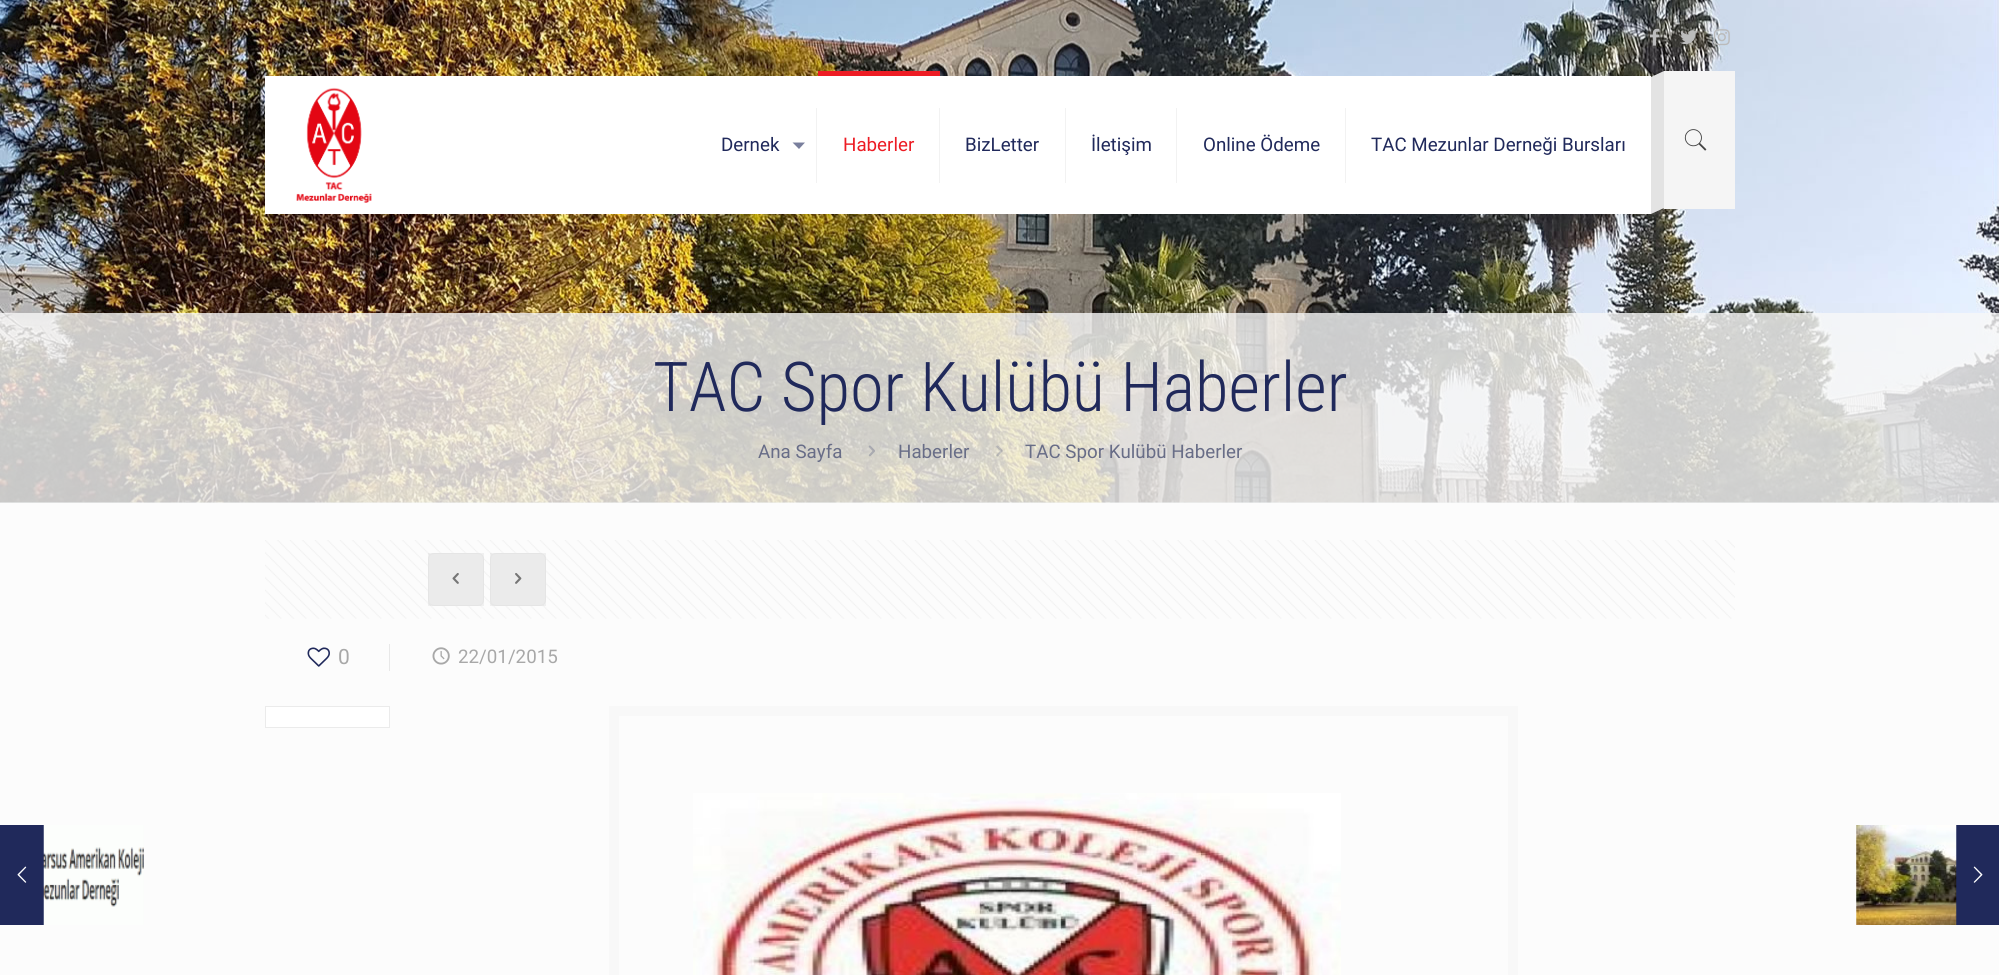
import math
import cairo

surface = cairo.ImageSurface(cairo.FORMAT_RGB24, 1999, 975)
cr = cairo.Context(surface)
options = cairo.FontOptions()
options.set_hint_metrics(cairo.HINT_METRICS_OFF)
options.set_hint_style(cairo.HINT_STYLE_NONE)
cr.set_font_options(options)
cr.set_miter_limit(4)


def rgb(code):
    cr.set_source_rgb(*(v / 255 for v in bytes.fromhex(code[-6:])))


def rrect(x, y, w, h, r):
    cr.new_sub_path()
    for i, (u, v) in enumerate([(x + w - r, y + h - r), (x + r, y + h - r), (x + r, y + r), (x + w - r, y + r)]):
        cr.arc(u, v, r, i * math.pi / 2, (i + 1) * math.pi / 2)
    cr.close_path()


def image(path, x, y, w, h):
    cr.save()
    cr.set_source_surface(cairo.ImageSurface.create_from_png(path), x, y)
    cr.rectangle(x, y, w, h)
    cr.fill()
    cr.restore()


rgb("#fcfcfc")
cr.paint()
rgb("#deecef")
cr.rectangle(0, 502, 1999, 1)
cr.fill()
image("img/1.png", 0, 0, 1999, 503)
image("img/2.png", 1650, 28, 10, 18)
image("img/3.png", 1680, 30, 17, 15)
image("img/4.png", 1713, 29, 17, 17)
rgb("#ffffff")
cr.rectangle(265, 76, 1386, 138)
cr.fill()
image("img/5.png", 296, 87, 76, 116)
rgb("#f2f2f2")
cr.rectangle(816, 108, 1, 75)
cr.fill()
rgb("#797f9d")
cr.new_path()
cr.move_to(792.5, 142.5)
cr.line_to(805, 142.5)
cr.line_to(799, 149)
cr.close_path()
cr.fill()
for x, y, w, h, color in [
    (818, 71, 122, 5, "#ed1c24"),
    (939, 108, 1, 75, "#f2f2f2"),
    (1065, 108, 1, 75, "#f2f2f2"),
    (1176, 108, 1, 75, "#f2f2f2"),
    (1345, 108, 1, 75, "#f2f2f2"),
    (1664, 71, 71, 138, "#f5f5f5"),
]:
    rgb(color)
    cr.rectangle(x, y, w, h)
    cr.fill()
rgb("#e3e3e3")
cr.new_path()
cr.move_to(1651, 77)
cr.line_to(1664, 71)
cr.line_to(1664, 208)
cr.line_to(1651, 214)
cr.close_path()
cr.fill()
image("img/6.png", 1684, 129, 23, 22)
cr.set_source_rgba(0.969, 0.969, 0.969, 0.8)
cr.rectangle(0, 313, 1999, 190)
cr.fill()
image("img/7.png", 868, 445, 7, 12)
image("img/8.png", 996, 445, 7, 12)
image("img/9.png", 265, 540, 1470, 79)
rgb("#f7f7f7")
rrect(428.5, 553.5, 55, 52, 5.5)
cr.fill_preserve()
rgb("#f0f0f0")
cr.set_line_width(1)
cr.stroke()
cr.set_source_rgba(0, 0, 0, 0.05)
cr.rectangle(428, 553, 56, 53)
cr.fill()
image("img/10.png", 452, 573, 7, 11)
rgb("#f7f7f7")
rrect(490.5, 553.5, 55, 52, 5.5)
cr.fill_preserve()
rgb("#f0f0f0")
cr.stroke()
cr.set_source_rgba(0, 0, 0, 0.05)
cr.rectangle(490, 553, 56, 53)
cr.fill()
image("img/11.png", 515, 573, 7, 11)
image("img/12.png", 307, 647, 23, 20)
rgb("#e8e8e8")
cr.rectangle(389, 644, 1, 27)
cr.fill()
image("img/13.png", 432, 647, 18, 18)
rgb("#ffffff")
cr.rectangle(265.5, 706.5, 124, 21)
cr.fill_preserve()
rgb("#ebebeb")
cr.stroke()
cr.rectangle(614, 711, 899, 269)
rgb("#f8f8f8")
cr.set_line_width(10)
cr.stroke()
image("img/14.png", 693, 793, 648, 182)
rgb("#20295b")
cr.rectangle(0, 825, 44, 100)
cr.fill()
image("img/15.png", 17, 866, 10, 17)
image("img/16.png", 43, 825, 101, 100)
cr.rectangle(1956, 825, 43, 100)
cr.fill()
image("img/17.png", 1856, 825, 101, 100)
image("img/18.png", 1973, 866, 10, 17)
cr.select_font_face("Roboto")
cr.set_font_size(18.75)
cr.move_to(721, 151)
cr.show_text("Dernek")
rgb("#ed1c24")
cr.move_to(843, 151)
cr.show_text("Haberler")
rgb("#20295b")
for x, y, s in [
    (965, 151, "BizLetter"),
    (1091, 151, "İletişim"),
    (1203, 151, "Online Ödeme"),
    (1371, 151, "TAC Mezunlar Derneği Bursları"),
]:
    cr.move_to(x, y)
    cr.show_text(s)
cr.select_font_face("Roboto Condensed Light")
cr.set_font_size(68.75)
cr.move_to(653, 411)
cr.show_text("TAC Spor Kulübü Haberler")
cr.select_font_face("Roboto")
cr.set_font_size(18.75)
rgb("#686d87")
for x, y, s in [
    (758, 458, "Ana Sayfa"),
    (898, 458, "Haberler"),
    (1025, 458, "TAC Spor Kulübü Haberler"),
]:
    cr.move_to(x, y)
    cr.show_text(s)
cr.set_font_size(21)
rgb("#a8a8a8")
cr.move_to(338, 664)
cr.show_text("0")
cr.set_font_size(18.75)
cr.move_to(458, 663)
cr.show_text("22/01/2015")
surface.write_to_png("page.png")
